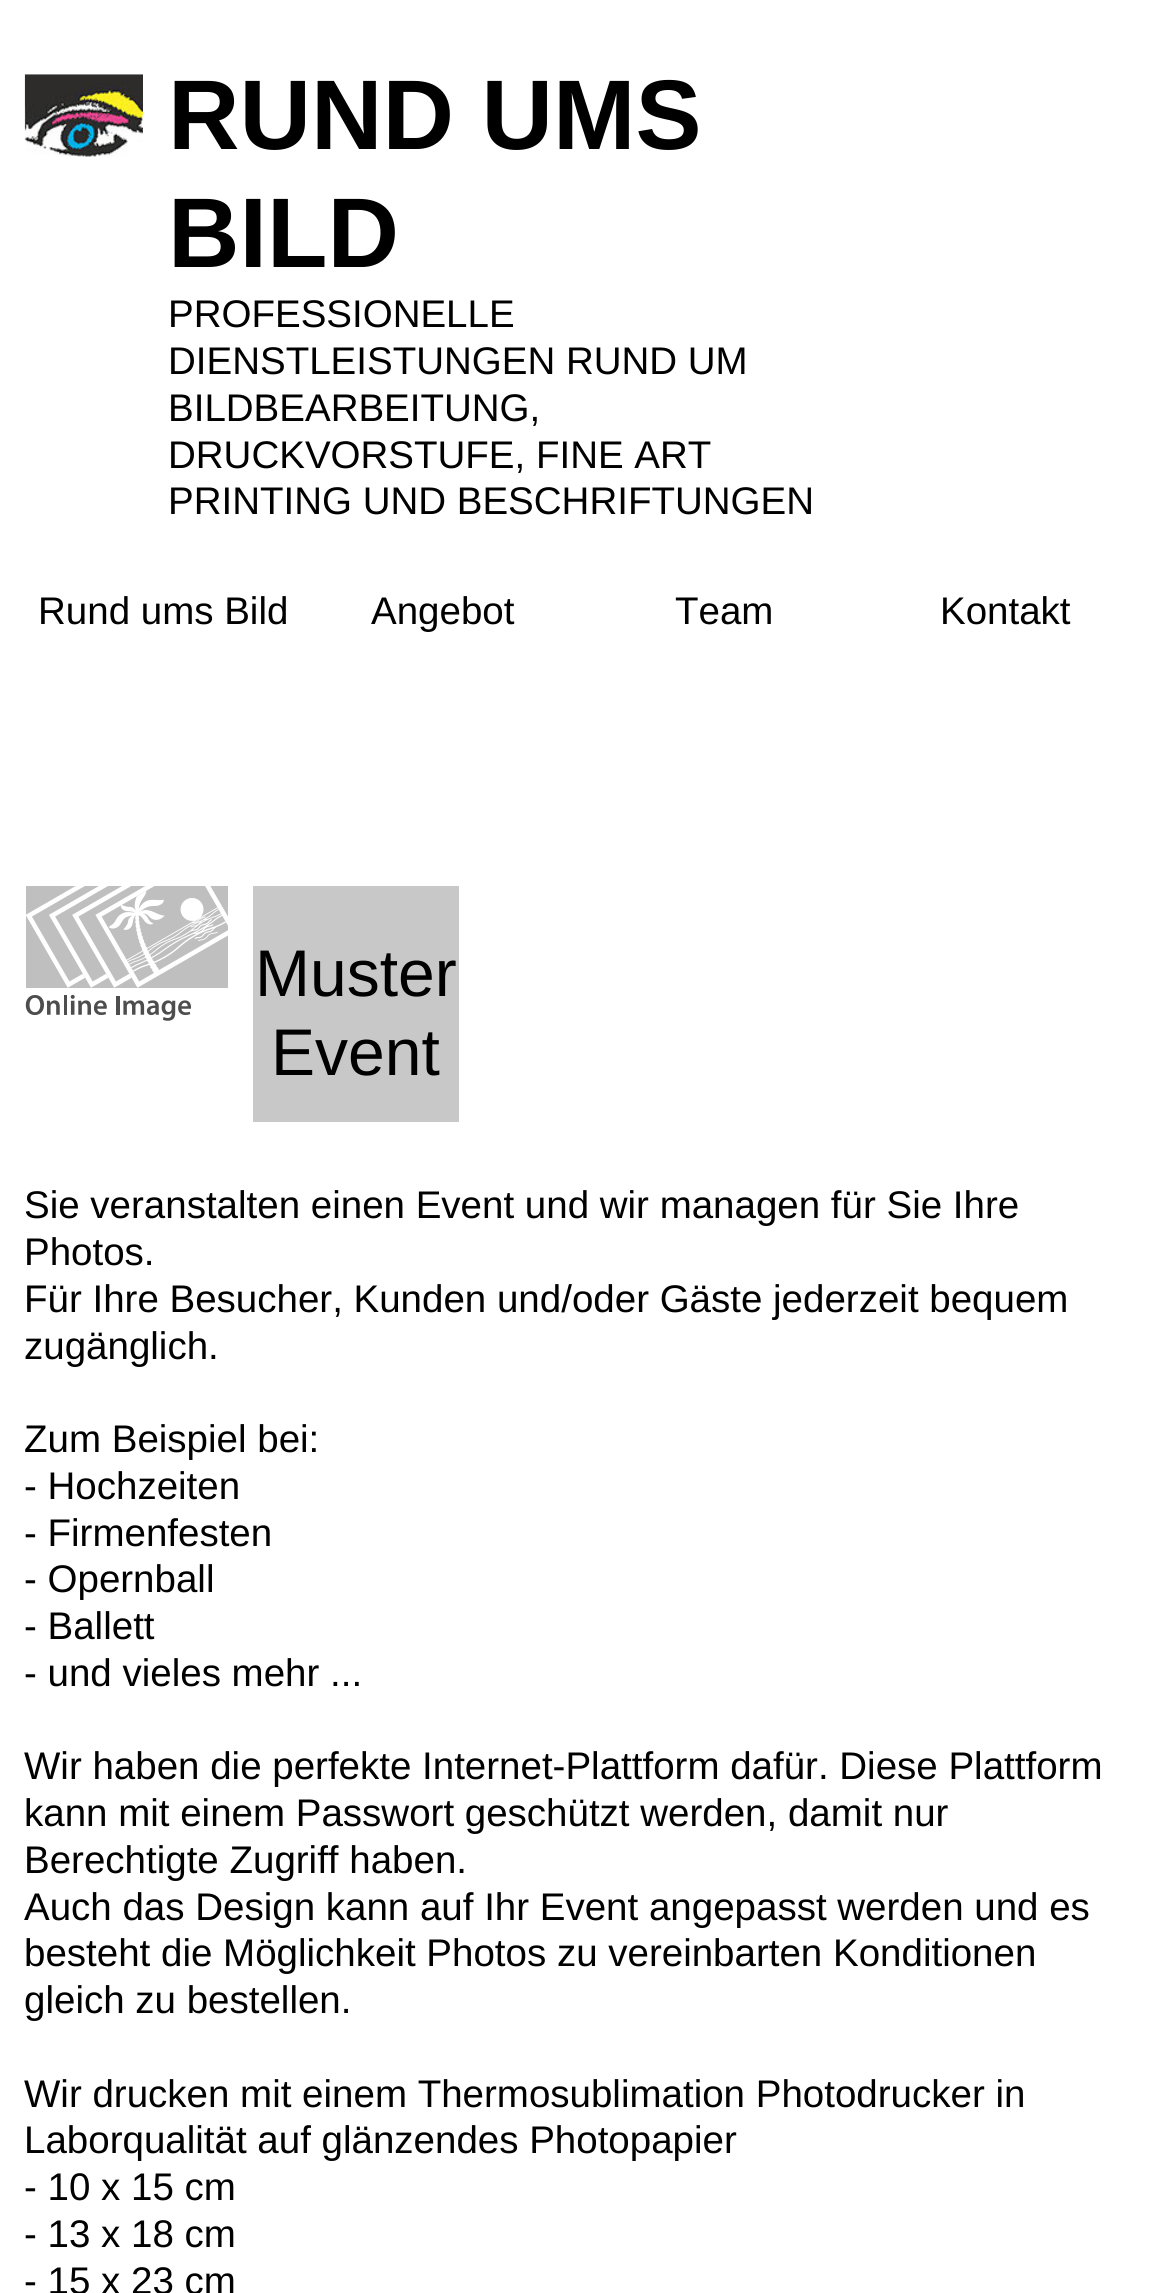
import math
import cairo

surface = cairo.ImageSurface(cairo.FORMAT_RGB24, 1167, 2293)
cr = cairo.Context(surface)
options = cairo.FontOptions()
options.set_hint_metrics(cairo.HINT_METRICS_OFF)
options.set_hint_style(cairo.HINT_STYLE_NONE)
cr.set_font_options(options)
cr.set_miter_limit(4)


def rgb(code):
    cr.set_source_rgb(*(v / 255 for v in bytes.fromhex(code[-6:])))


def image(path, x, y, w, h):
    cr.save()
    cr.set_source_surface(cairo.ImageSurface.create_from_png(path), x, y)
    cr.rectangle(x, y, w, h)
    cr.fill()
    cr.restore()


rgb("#ffffff")
cr.paint()
image("img/1.png", 24, 74, 119, 83)
image("img/2.png", 25, 886, 203, 135)
rgb("#c8c8c8")
cr.rectangle(253, 886, 206, 236)
cr.fill()
cr.select_font_face("Liberation Sans", cairo.FONT_SLANT_NORMAL, cairo.FONT_WEIGHT_BOLD)
cr.set_font_size(99)
rgb("#000000")
cr.move_to(168, 149)
cr.show_text("RUND UMS")
cr.move_to(168, 267)
cr.show_text("BILD")
cr.select_font_face("Liberation Sans")
cr.set_font_size(38.5)
for x, y, s in [
    (168, 327, "PROFESSIONELLE"),
    (168, 374, "DIENSTLEISTUNGEN RUND UM"),
    (168, 421, "BILDBEARBEITUNG,"),
    (168, 468, "DRUCKVORSTUFE, FINE ART"),
    (168, 514, "PRINTING UND BESCHRIFTUNGEN"),
    (38, 624, "Rund ums Bild"),
    (371, 624, "Angebot"),
    (675, 624, "Team"),
    (940, 624, "Kontakt"),
]:
    cr.move_to(x, y)
    cr.show_text(s)
cr.set_font_size(66)
cr.move_to(255, 996)
cr.show_text("Muster")
cr.move_to(271, 1075)
cr.show_text("Event")
cr.set_font_size(38.5)
for x, y, s in [
    (24, 1218, "Sie veranstalten einen Event und wir managen für Sie Ihre"),
    (24, 1265, "Photos."),
    (24, 1312, "Für Ihre Besucher, Kunden und/oder Gäste jederzeit bequem"),
    (24, 1359, "zugänglich."),
    (24, 1452, "Zum Beispiel bei:"),
    (24, 1499, "- Hochzeiten"),
    (24, 1546, "- Firmenfesten"),
    (24, 1592, "- Opernball"),
    (24, 1639, "- Ballett"),
    (24, 1686, "- und vieles mehr ..."),
    (24, 1779, "Wir haben die perfekte Internet-Plattform dafür. Diese Plattform"),
    (24, 1826, "kann mit einem Passwort geschützt werden, damit nur"),
    (24, 1873, "Berechtigte Zugriff haben."),
    (24, 1920, "Auch das Design kann auf Ihr Event angepasst werden und es"),
    (24, 1966, "besteht die Möglichkeit Photos zu vereinbarten Konditionen"),
    (24, 2013, "gleich zu bestellen."),
    (24, 2107, "Wir drucken mit einem Thermosublimation Photodrucker in"),
    (24, 2153, "Laborqualität auf glänzendes Photopapier"),
    (24, 2200, "- 10 x 15 cm"),
    (24, 2247, "- 13 x 18 cm"),
    (24, 2294, "- 15 x 23 cm"),
]:
    cr.move_to(x, y)
    cr.show_text(s)
surface.write_to_png("page.png")
